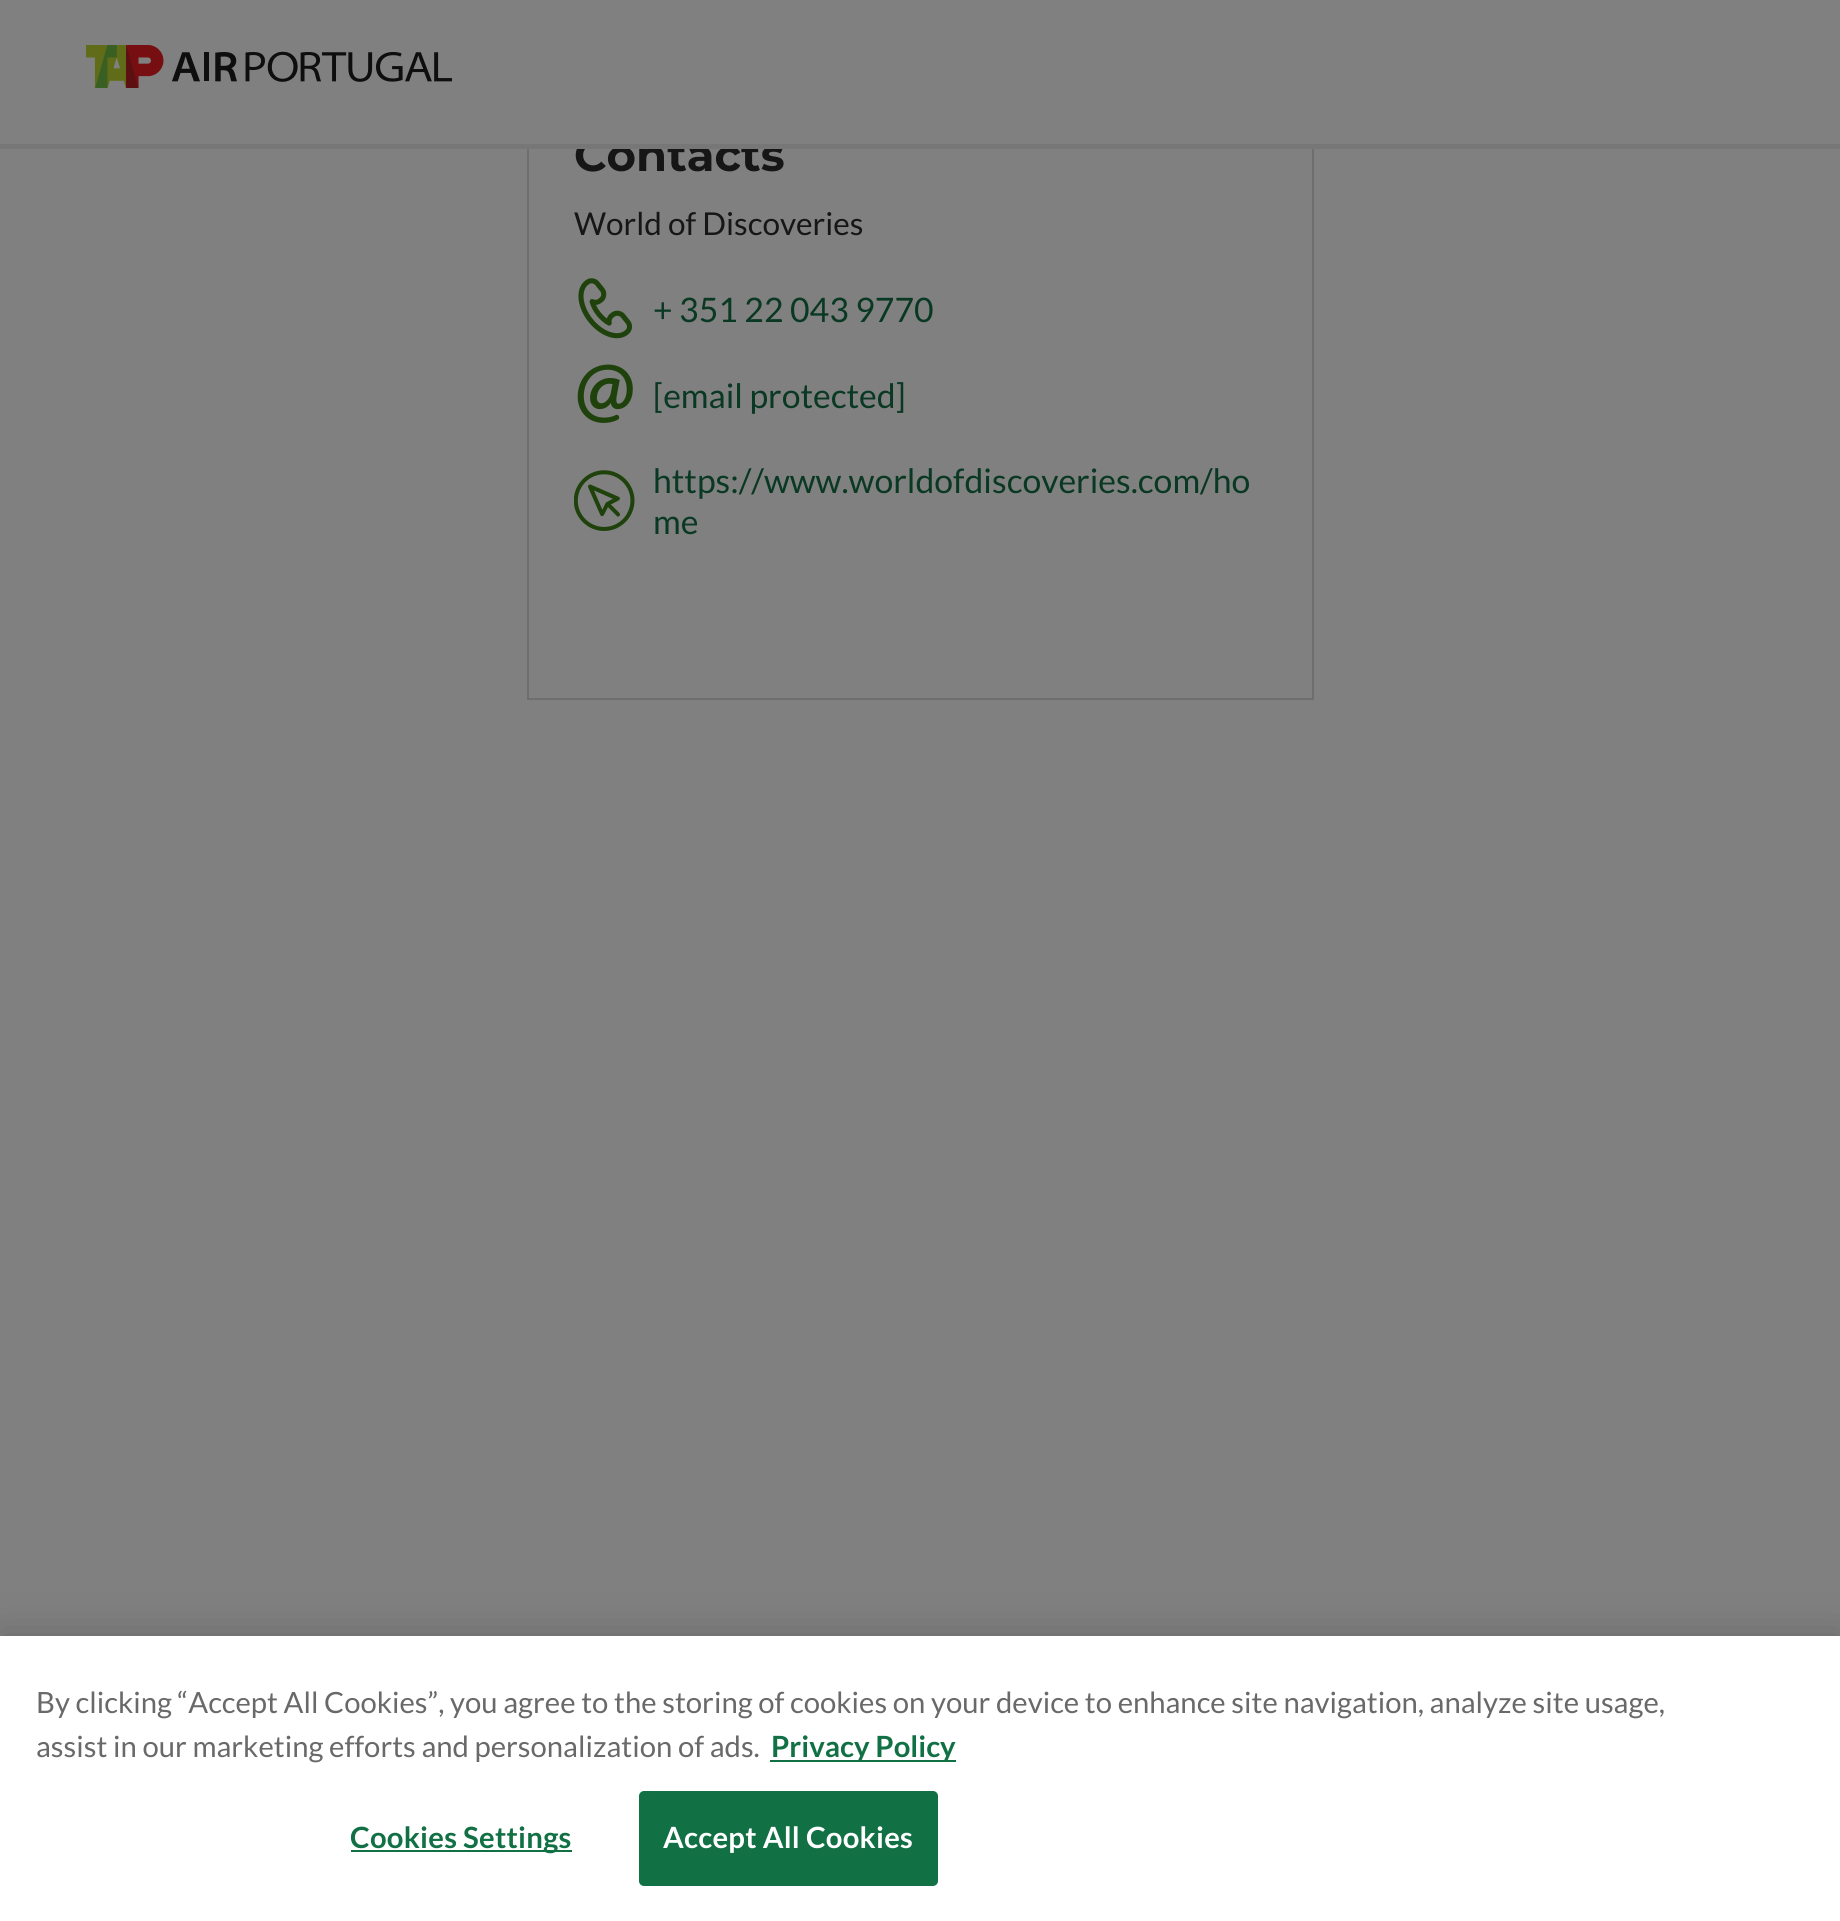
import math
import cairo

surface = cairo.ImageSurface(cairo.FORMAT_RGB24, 1840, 1921)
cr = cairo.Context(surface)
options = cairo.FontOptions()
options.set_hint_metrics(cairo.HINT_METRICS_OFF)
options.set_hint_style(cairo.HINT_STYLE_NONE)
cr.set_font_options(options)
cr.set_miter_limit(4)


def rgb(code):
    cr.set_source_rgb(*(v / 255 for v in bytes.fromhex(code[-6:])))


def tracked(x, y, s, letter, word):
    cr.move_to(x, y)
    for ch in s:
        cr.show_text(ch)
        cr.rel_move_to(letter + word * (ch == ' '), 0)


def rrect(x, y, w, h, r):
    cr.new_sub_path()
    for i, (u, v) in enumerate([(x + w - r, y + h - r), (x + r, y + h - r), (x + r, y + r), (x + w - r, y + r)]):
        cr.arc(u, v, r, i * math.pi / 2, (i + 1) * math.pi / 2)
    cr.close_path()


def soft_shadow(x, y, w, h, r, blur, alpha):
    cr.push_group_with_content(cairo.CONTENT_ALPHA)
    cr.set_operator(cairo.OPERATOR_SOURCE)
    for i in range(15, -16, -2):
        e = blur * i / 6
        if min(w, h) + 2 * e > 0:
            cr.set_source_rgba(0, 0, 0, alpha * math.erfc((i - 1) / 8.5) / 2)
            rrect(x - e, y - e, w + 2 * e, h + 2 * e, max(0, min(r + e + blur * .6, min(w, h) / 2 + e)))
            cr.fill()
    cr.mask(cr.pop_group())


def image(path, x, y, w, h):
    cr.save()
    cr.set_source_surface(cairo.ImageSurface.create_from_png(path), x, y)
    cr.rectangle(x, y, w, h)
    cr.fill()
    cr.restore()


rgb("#808080")
cr.paint()
image("img/1.png", 86, 45, 366, 43)
cr.rectangle(528, -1, 785, 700)
rgb("#6e6e6e")
cr.stroke()
image("img/2.png", 578, 278, 55, 61)
image("img/3.png", 577, 364, 56, 59)
image("img/4.png", 574, 470, 61, 61)
rgb("#000000")
soft_shadow(0, 1636, 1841, 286, 0, 20, 0.2)
for x, y, w, h, color in [
    (0, 1636, 1840, 285, "#ffffff"),
    (770, 1760, 186, 2, "#127045"),
    (351, 1850, 221, 2, "#127045"),
]:
    rgb(color)
    cr.rectangle(x, y, w, h)
    cr.fill()
rrect(640, 1792, 297, 93, 4)
cr.fill_preserve()
cr.stroke()
cr.select_font_face("Montserrat", cairo.FONT_SLANT_NORMAL, cairo.FONT_WEIGHT_BOLD)
cr.set_font_size(45)
rgb("#161616")
cr.move_to(574, 171)
cr.show_text("Contacts")
rgb("#777777")
cr.rectangle(0, 144, 1840, 5)
cr.fill()
rgb("#808080")
cr.rectangle(527, 0, 787, 144)
cr.fill()
cr.select_font_face("Lato")
cr.set_font_size(31.5)
rgb("#161616")
cr.move_to(574, 235)
cr.show_text("World of Discoveries")
cr.set_font_size(33.75)
rgb("#093823")
for x, y, s in [
    (653, 322, "+ 351 22 043 9770"),
    (653, 408, "[email protected]"),
    (653, 493, "https://www.worldofdiscoveries.com/ho"),
    (653, 534, "me"),
]:
    cr.move_to(x, y)
    cr.show_text(s)
cr.set_font_size(29.27)
rgb("#696969")
cr.move_to(36, 1713)
cr.show_text("By clicking “Accept All Cookies”, you agree to the storing of cookies on your device to enhance site navigation, analyze site usage,")
cr.move_to(36, 1757)
cr.show_text("assist in our marketing efforts and personalization of ads.")
cr.select_font_face("Lato", cairo.FONT_SLANT_NORMAL, cairo.FONT_WEIGHT_BOLD)
rgb("#127045")
cr.move_to(771, 1757)
cr.show_text("Privacy Policy")
tracked(350, 1848, "Cookies Settings", 0.25, 0)
rgb("#ffffff")
tracked(663, 1848, "Accept All Cookies", 0.25, 0)
surface.write_to_png("page.png")
